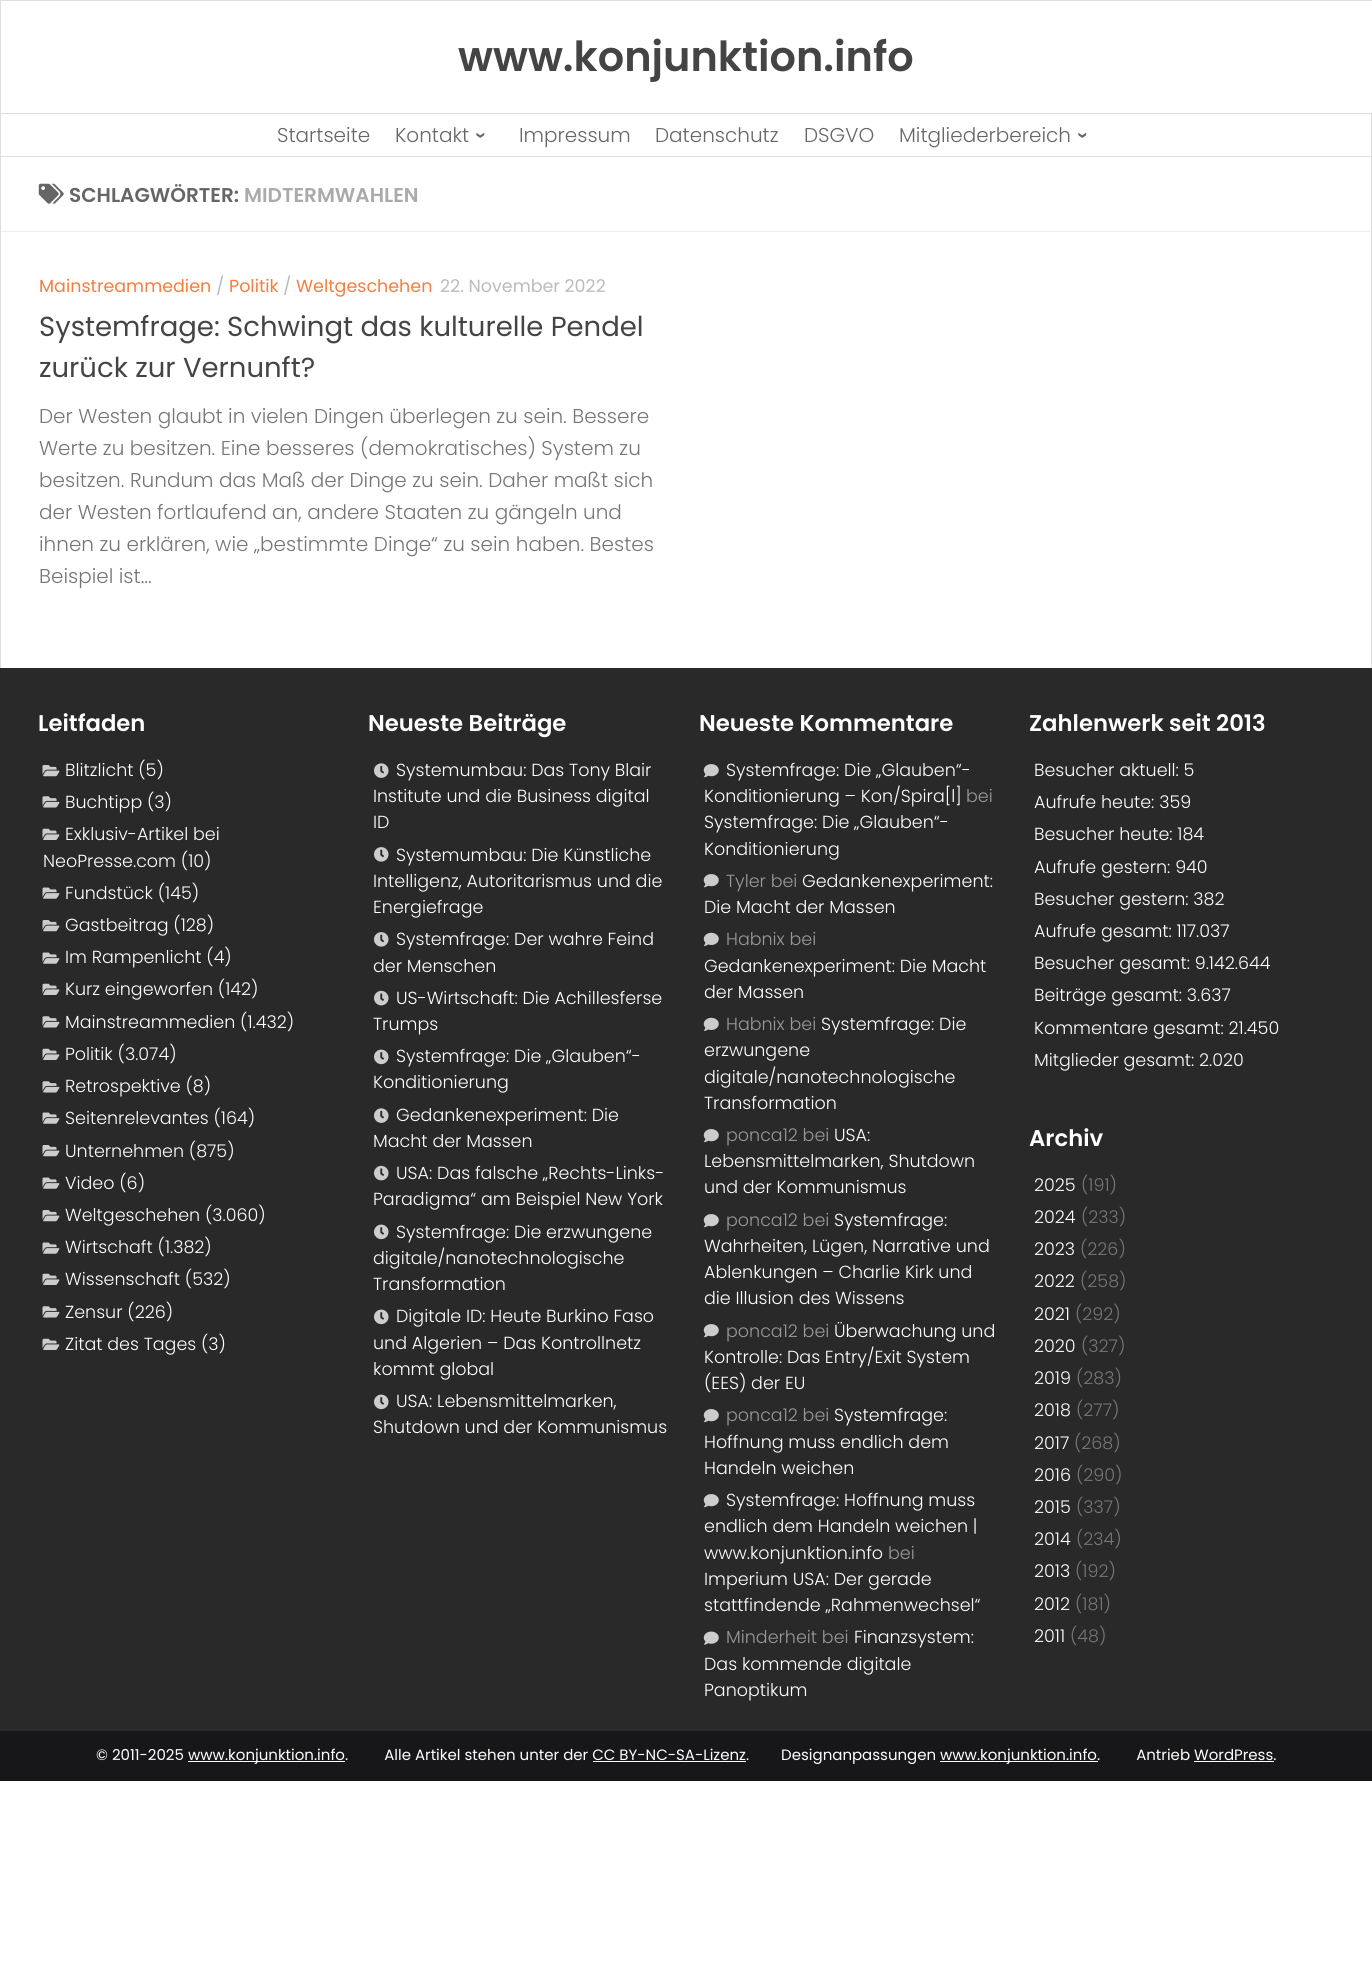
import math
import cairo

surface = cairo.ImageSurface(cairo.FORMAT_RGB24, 1372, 1980)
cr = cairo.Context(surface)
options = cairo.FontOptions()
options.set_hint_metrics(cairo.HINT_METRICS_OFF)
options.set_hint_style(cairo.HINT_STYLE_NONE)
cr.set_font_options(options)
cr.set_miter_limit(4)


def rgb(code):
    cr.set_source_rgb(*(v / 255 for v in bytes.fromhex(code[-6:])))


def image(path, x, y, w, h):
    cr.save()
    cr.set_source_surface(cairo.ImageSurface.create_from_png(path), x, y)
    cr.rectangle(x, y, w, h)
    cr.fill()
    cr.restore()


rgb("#ffffff")
cr.paint()
cr.rectangle(0.5, 0.5, 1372, 113)
rgb("#dddddd")
cr.set_line_width(1)
cr.stroke()
for x, y, w, h, color in [
    (0, 156, 1372, 1, "#dddddd"),
    (1371, 114, 1, 554, "#dddddd"),
    (0, 114, 1, 554, "#dddddd"),
    (1, 231, 1370, 1, "#eeeeee"),
]:
    rgb(color)
    cr.rectangle(x, y, w, h)
    cr.fill()
image("img/1.png", 38, 183, 26, 21)
rgb("#292929")
cr.rectangle(0, 668, 1372, 1063)
cr.fill()
image("img/2.png", 42, 765, 18, 12)
image("img/3.png", 42, 796, 18, 12)
image("img/4.png", 42, 828, 18, 12)
image("img/5.png", 42, 887, 18, 12)
image("img/2.png", 42, 920, 18, 12)
image("img/5.png", 42, 952, 18, 12)
image("img/4.png", 42, 983, 18, 12)
image("img/3.png", 42, 1016, 18, 12)
image("img/4.png", 42, 1048, 18, 12)
image("img/3.png", 42, 1081, 18, 12)
image("img/5.png", 42, 1112, 18, 12)
image("img/2.png", 42, 1145, 18, 12)
image("img/5.png", 42, 1177, 18, 12)
image("img/2.png", 42, 1210, 18, 12)
image("img/5.png", 42, 1242, 18, 12)
image("img/4.png", 42, 1273, 18, 12)
image("img/3.png", 42, 1306, 18, 12)
image("img/4.png", 42, 1338, 18, 12)
image("img/6.png", 374, 763, 15, 15)
image("img/7.png", 374, 847, 15, 15)
image("img/7.png", 374, 932, 15, 15)
image("img/8.png", 374, 990, 15, 16)
image("img/9.png", 374, 1049, 15, 16)
image("img/6.png", 374, 1108, 15, 15)
image("img/8.png", 374, 1165, 15, 16)
image("img/9.png", 374, 1224, 15, 16)
image("img/9.png", 374, 1309, 15, 16)
image("img/9.png", 374, 1394, 15, 16)
image("img/10.png", 703, 764, 16, 14)
image("img/10.png", 703, 874, 16, 14)
image("img/11.png", 703, 932, 16, 14)
image("img/11.png", 703, 1017, 16, 14)
image("img/10.png", 703, 1129, 16, 14)
image("img/10.png", 703, 1214, 16, 14)
image("img/10.png", 703, 1324, 16, 14)
image("img/10.png", 703, 1409, 16, 14)
image("img/10.png", 703, 1494, 16, 14)
image("img/12.png", 703, 1631, 16, 14)
for x, y, w, h, color in [
    (0, 1731, 1372, 50, "#171719"),
    (188, 1761, 157, 1, "#ffffff"),
    (940, 1761, 158, 1, "#ffffff"),
    (593, 1761, 153, 1, "#ffffff"),
    (1194, 1761, 80, 1, "#ffffff"),
]:
    rgb(color)
    cr.rectangle(x, y, w, h)
    cr.fill()
cr.select_font_face("Poppins SemiBold")
cr.set_font_size(41.4)
rgb("#444444")
cr.move_to(458, 71)
cr.show_text("www.konjunktion.info")
cr.select_font_face("Poppins Light")
cr.set_font_size(20)
rgb("#666666")
cr.move_to(277, 142)
cr.show_text("Startseite")
cr.move_to(395, 142)
cr.show_text("Kontakt")
cr.select_font_face("Liberation Sans", cairo.FONT_SLANT_NORMAL, cairo.FONT_WEIGHT_BOLD)
cr.save()
cr.translate(475, 132)
cr.rotate(90 * math.pi / 180)
cr.move_to(0, 0)
cr.show_text("›")
cr.restore()
cr.select_font_face("Poppins Light")
for x, y, s in [
    (519, 142, "Impressum"),
    (655, 142, "Datenschutz"),
    (804, 142, "DSGVO"),
    (899, 142, "Mitgliederbereich"),
]:
    cr.move_to(x, y)
    cr.show_text(s)
cr.select_font_face("Liberation Sans", cairo.FONT_SLANT_NORMAL, cairo.FONT_WEIGHT_BOLD)
cr.save()
cr.translate(1077, 132)
cr.rotate(90 * math.pi / 180)
cr.move_to(0, 0)
cr.show_text("›")
cr.restore()
cr.select_font_face("Poppins SemiBold")
cr.move_to(69, 202)
cr.show_text("SCHLAGWÖRTER:")
rgb("#aaaaaa")
cr.move_to(244, 202)
cr.show_text("MIDTERMWAHLEN")
cr.select_font_face("Poppins")
cr.set_font_size(17.5)
rgb("#f47e3e")
cr.move_to(39, 292)
cr.show_text("Mainstreammedien")
rgb("#bbbbbb")
cr.move_to(216, 292)
cr.show_text("/")
rgb("#f47e3e")
cr.move_to(229, 292)
cr.show_text("Politik")
rgb("#bbbbbb")
cr.move_to(283, 292)
cr.show_text("/")
rgb("#f47e3e")
cr.move_to(296, 292)
cr.show_text("Weltgeschehen")
rgb("#bbbbbb")
cr.move_to(440, 292)
cr.show_text("22. November 2022")
cr.set_font_size(27.5)
rgb("#444444")
cr.move_to(39, 336)
cr.show_text("Systemfrage: Schwingt das kulturelle Pendel")
cr.move_to(39, 377)
cr.show_text("zurück zur Vernunft?")
cr.select_font_face("Poppins Light")
cr.set_font_size(20)
rgb("#767676")
for x, y, s in [
    (39, 423, "Der Westen glaubt in vielen Dingen überlegen zu sein. Bessere"),
    (39, 455, "Werte zu besitzen. Eine besseres (demokratisches) System zu"),
    (39, 487, "besitzen. Rundum das Maß der Dinge zu sein. Daher maßt sich"),
    (39, 519, "der Westen fortlaufend an, andere Staaten zu gängeln und"),
    (39, 551, "ihnen zu erklären, wie „bestimmte Dinge“ zu sein haben. Bestes"),
    (39, 583, "Beispiel ist..."),
]:
    cr.move_to(x, y)
    cr.show_text(s)
cr.select_font_face("Poppins SemiBold")
cr.set_font_size(22.75)
rgb("#ffffff")
cr.move_to(38, 731)
cr.show_text("Leitfaden")
cr.select_font_face("Poppins Light")
cr.set_font_size(17.5)
for x, y, s in [
    (65, 776, "Blitzlicht (5)"),
    (65, 808, "Buchtipp (3)"),
    (65, 840, "Exklusiv-Artikel bei"),
    (43, 867, "NeoPresse.com (10)"),
    (65, 899, "Fundstück (145)"),
    (65, 931, "Gastbeitrag (128)"),
    (65, 963, "Im Rampenlicht (4)"),
    (65, 995, "Kurz eingeworfen (142)"),
    (65, 1028, "Mainstreammedien (1.432)"),
    (65, 1060, "Politik (3.074)"),
    (65, 1092, "Retrospektive (8)"),
    (65, 1124, "Seitenrelevantes (164)"),
    (65, 1157, "Unternehmen (875)"),
    (65, 1189, "Video (6)"),
    (65, 1221, "Weltgeschehen (3.060)"),
    (65, 1253, "Wirtschaft (1.382)"),
    (65, 1285, "Wissenschaft (532)"),
    (65, 1318, "Zensur (226)"),
    (65, 1350, "Zitat des Tages (3)"),
]:
    cr.move_to(x, y)
    cr.show_text(s)
cr.select_font_face("Poppins SemiBold")
cr.set_font_size(22.75)
cr.move_to(368, 731)
cr.show_text("Neueste Beiträge")
cr.select_font_face("Poppins Light")
cr.set_font_size(17.5)
for x, y, s in [
    (396, 776, "Systemumbau: Das Tony Blair"),
    (373, 802, "Institute und die Business digital"),
    (373, 828, "ID"),
    (396, 861, "Systemumbau: Die Künstliche"),
    (373, 887, "Intelligenz, Autoritarismus und die"),
    (373, 913, "Energiefrage"),
    (396, 945, "Systemfrage: Der wahre Feind"),
    (373, 972, "der Menschen"),
    (396, 1004, "US-Wirtschaft: Die Achillesferse"),
    (373, 1030, "Trumps"),
    (396, 1062, "Systemfrage: Die „Glauben“-"),
    (373, 1088, "Konditionierung"),
    (396, 1121, "Gedankenexperiment: Die"),
    (373, 1147, "Macht der Massen"),
    (396, 1179, "USA: Das falsche „Rechts-Links-"),
    (373, 1205, "Paradigma“ am Beispiel New York"),
    (396, 1238, "Systemfrage: Die erzwungene"),
    (373, 1264, "digitale/nanotechnologische"),
    (373, 1290, "Transformation"),
    (396, 1322, "Digitale ID: Heute Burkino Faso"),
    (373, 1349, "und Algerien – Das Kontrollnetz"),
    (373, 1375, "kommt global"),
    (396, 1407, "USA: Lebensmittelmarken,"),
    (373, 1433, "Shutdown und der Kommunismus"),
]:
    cr.move_to(x, y)
    cr.show_text(s)
cr.select_font_face("Poppins SemiBold")
cr.set_font_size(22.75)
cr.move_to(699, 731)
cr.show_text("Neueste Kommentare")
cr.select_font_face("Poppins Light")
cr.set_font_size(17.5)
cr.move_to(726, 776)
cr.show_text("Systemfrage: Die „Glauben“-")
cr.move_to(704, 802)
cr.show_text("Konditionierung – Kon/Spira[l]")
rgb("#999999")
cr.move_to(966, 802)
cr.show_text("bei")
rgb("#ffffff")
cr.move_to(704, 828)
cr.show_text("Systemfrage: Die „Glauben“-")
cr.move_to(704, 855)
cr.show_text("Konditionierung")
rgb("#999999")
cr.move_to(726, 887)
cr.show_text("Tyler bei")
rgb("#ffffff")
cr.move_to(802, 887)
cr.show_text("Gedankenexperiment:")
cr.move_to(704, 913)
cr.show_text("Die Macht der Massen")
rgb("#999999")
cr.move_to(726, 945)
cr.show_text("Habnix bei")
rgb("#ffffff")
cr.move_to(704, 972)
cr.show_text("Gedankenexperiment: Die Macht")
cr.move_to(704, 998)
cr.show_text("der Massen")
rgb("#999999")
cr.move_to(726, 1030)
cr.show_text("Habnix bei")
rgb("#ffffff")
for x, y, s in [
    (821, 1030, "Systemfrage: Die"),
    (704, 1056, "erzwungene"),
    (704, 1083, "digitale/nanotechnologische"),
    (704, 1109, "Transformation"),
]:
    cr.move_to(x, y)
    cr.show_text(s)
rgb("#999999")
cr.move_to(726, 1141)
cr.show_text("ponca12 bei")
rgb("#ffffff")
for x, y, s in [
    (834, 1141, "USA:"),
    (704, 1167, "Lebensmittelmarken, Shutdown"),
    (704, 1193, "und der Kommunismus"),
]:
    cr.move_to(x, y)
    cr.show_text(s)
rgb("#999999")
cr.move_to(726, 1226)
cr.show_text("ponca12 bei")
rgb("#ffffff")
for x, y, s in [
    (834, 1226, "Systemfrage:"),
    (704, 1252, "Wahrheiten, Lügen, Narrative und"),
    (704, 1278, "Ablenkungen – Charlie Kirk und"),
    (704, 1304, "die Illusion des Wissens"),
]:
    cr.move_to(x, y)
    cr.show_text(s)
rgb("#999999")
cr.move_to(726, 1337)
cr.show_text("ponca12 bei")
rgb("#ffffff")
for x, y, s in [
    (834, 1337, "Überwachung und"),
    (704, 1363, "Kontrolle: Das Entry/Exit System"),
    (704, 1389, "(EES) der EU"),
]:
    cr.move_to(x, y)
    cr.show_text(s)
rgb("#999999")
cr.move_to(726, 1421)
cr.show_text("ponca12 bei")
rgb("#ffffff")
for x, y, s in [
    (834, 1421, "Systemfrage:"),
    (704, 1448, "Hoffnung muss endlich dem"),
    (704, 1474, "Handeln weichen"),
    (726, 1506, "Systemfrage: Hoffnung muss"),
    (704, 1532, "endlich dem Handeln weichen |"),
    (704, 1559, "www.konjunktion.info"),
]:
    cr.move_to(x, y)
    cr.show_text(s)
rgb("#999999")
cr.move_to(888, 1559)
cr.show_text("bei")
rgb("#ffffff")
cr.move_to(704, 1585)
cr.show_text("Imperium USA: Der gerade")
cr.move_to(704, 1611)
cr.show_text("stattfindende „Rahmenwechsel“")
rgb("#999999")
cr.move_to(726, 1643)
cr.show_text("Minderheit bei")
rgb("#ffffff")
for x, y, s in [
    (854, 1643, "Finanzsystem:"),
    (704, 1670, "Das kommende digitale"),
    (704, 1696, "Panoptikum"),
]:
    cr.move_to(x, y)
    cr.show_text(s)
cr.select_font_face("Poppins SemiBold")
cr.set_font_size(22.75)
cr.move_to(1029, 731)
cr.show_text("Zahlenwerk seit 2013")
cr.select_font_face("Poppins Light")
cr.set_font_size(17.5)
for x, y, s in [
    (1034, 776, "Besucher aktuell: 5"),
    (1034, 808, "Aufrufe heute: 359"),
    (1034, 840, "Besucher heute: 184"),
    (1034, 873, "Aufrufe gestern: 940"),
    (1034, 905, "Besucher gestern: 382"),
    (1034, 937, "Aufrufe gesamt: 117.037"),
    (1034, 969, "Besucher gesamt: 9.142.644"),
    (1034, 1001, "Beiträge gesamt: 3.637"),
    (1034, 1034, "Kommentare gesamt: 21.450"),
    (1034, 1066, "Mitglieder gesamt: 2.020"),
]:
    cr.move_to(x, y)
    cr.show_text(s)
cr.select_font_face("Poppins SemiBold")
cr.set_font_size(22.75)
cr.move_to(1029, 1146)
cr.show_text("Archiv")
cr.select_font_face("Poppins Light")
cr.set_font_size(17.5)
cr.move_to(1034, 1191)
cr.show_text("2025")
rgb("#767676")
cr.move_to(1081, 1191)
cr.show_text("(191)")
rgb("#ffffff")
cr.move_to(1034, 1223)
cr.show_text("2024")
rgb("#767676")
cr.move_to(1081, 1223)
cr.show_text("(233)")
rgb("#ffffff")
cr.move_to(1034, 1255)
cr.show_text("2023")
rgb("#767676")
cr.move_to(1080, 1255)
cr.show_text("(226)")
rgb("#ffffff")
cr.move_to(1034, 1287)
cr.show_text("2022")
rgb("#767676")
cr.move_to(1080, 1287)
cr.show_text("(258)")
rgb("#ffffff")
cr.move_to(1034, 1320)
cr.show_text("2021")
rgb("#767676")
cr.move_to(1075, 1320)
cr.show_text("(292)")
rgb("#ffffff")
cr.move_to(1034, 1352)
cr.show_text("2020")
rgb("#767676")
cr.move_to(1081, 1352)
cr.show_text("(327)")
rgb("#ffffff")
cr.move_to(1034, 1384)
cr.show_text("2019")
rgb("#767676")
cr.move_to(1076, 1384)
cr.show_text("(283)")
rgb("#ffffff")
cr.move_to(1034, 1416)
cr.show_text("2018")
rgb("#767676")
cr.move_to(1076, 1416)
cr.show_text("(277)")
rgb("#ffffff")
cr.move_to(1034, 1449)
cr.show_text("2017")
rgb("#767676")
cr.move_to(1074, 1449)
cr.show_text("(268)")
rgb("#ffffff")
cr.move_to(1034, 1481)
cr.show_text("2016")
rgb("#767676")
cr.move_to(1076, 1481)
cr.show_text("(290)")
rgb("#ffffff")
cr.move_to(1034, 1513)
cr.show_text("2015")
rgb("#767676")
cr.move_to(1076, 1513)
cr.show_text("(337)")
rgb("#ffffff")
cr.move_to(1034, 1545)
cr.show_text("2014")
rgb("#767676")
cr.move_to(1076, 1545)
cr.show_text("(234)")
rgb("#ffffff")
cr.move_to(1034, 1577)
cr.show_text("2013")
rgb("#767676")
cr.move_to(1075, 1577)
cr.show_text("(192)")
rgb("#ffffff")
cr.move_to(1034, 1610)
cr.show_text("2012")
rgb("#767676")
cr.move_to(1075, 1610)
cr.show_text("(181)")
rgb("#ffffff")
cr.move_to(1034, 1642)
cr.show_text("2011")
rgb("#767676")
cr.move_to(1070, 1642)
cr.show_text("(48)")
cr.select_font_face("Poppins")
cr.set_font_size(15)
rgb("#ffffff")
for x, y, s in [
    (96, 1760, "© 2011-2025"),
    (188, 1760, "www.konjunktion.info.         Alle Artikel stehen unter der CC BY-NC-SA-Lizenz.        Designanpassungen"),
    (940, 1760, "www.konjunktion.info.         Antrieb WordPress."),
]:
    cr.move_to(x, y)
    cr.show_text(s)
surface.write_to_png("page.png")
